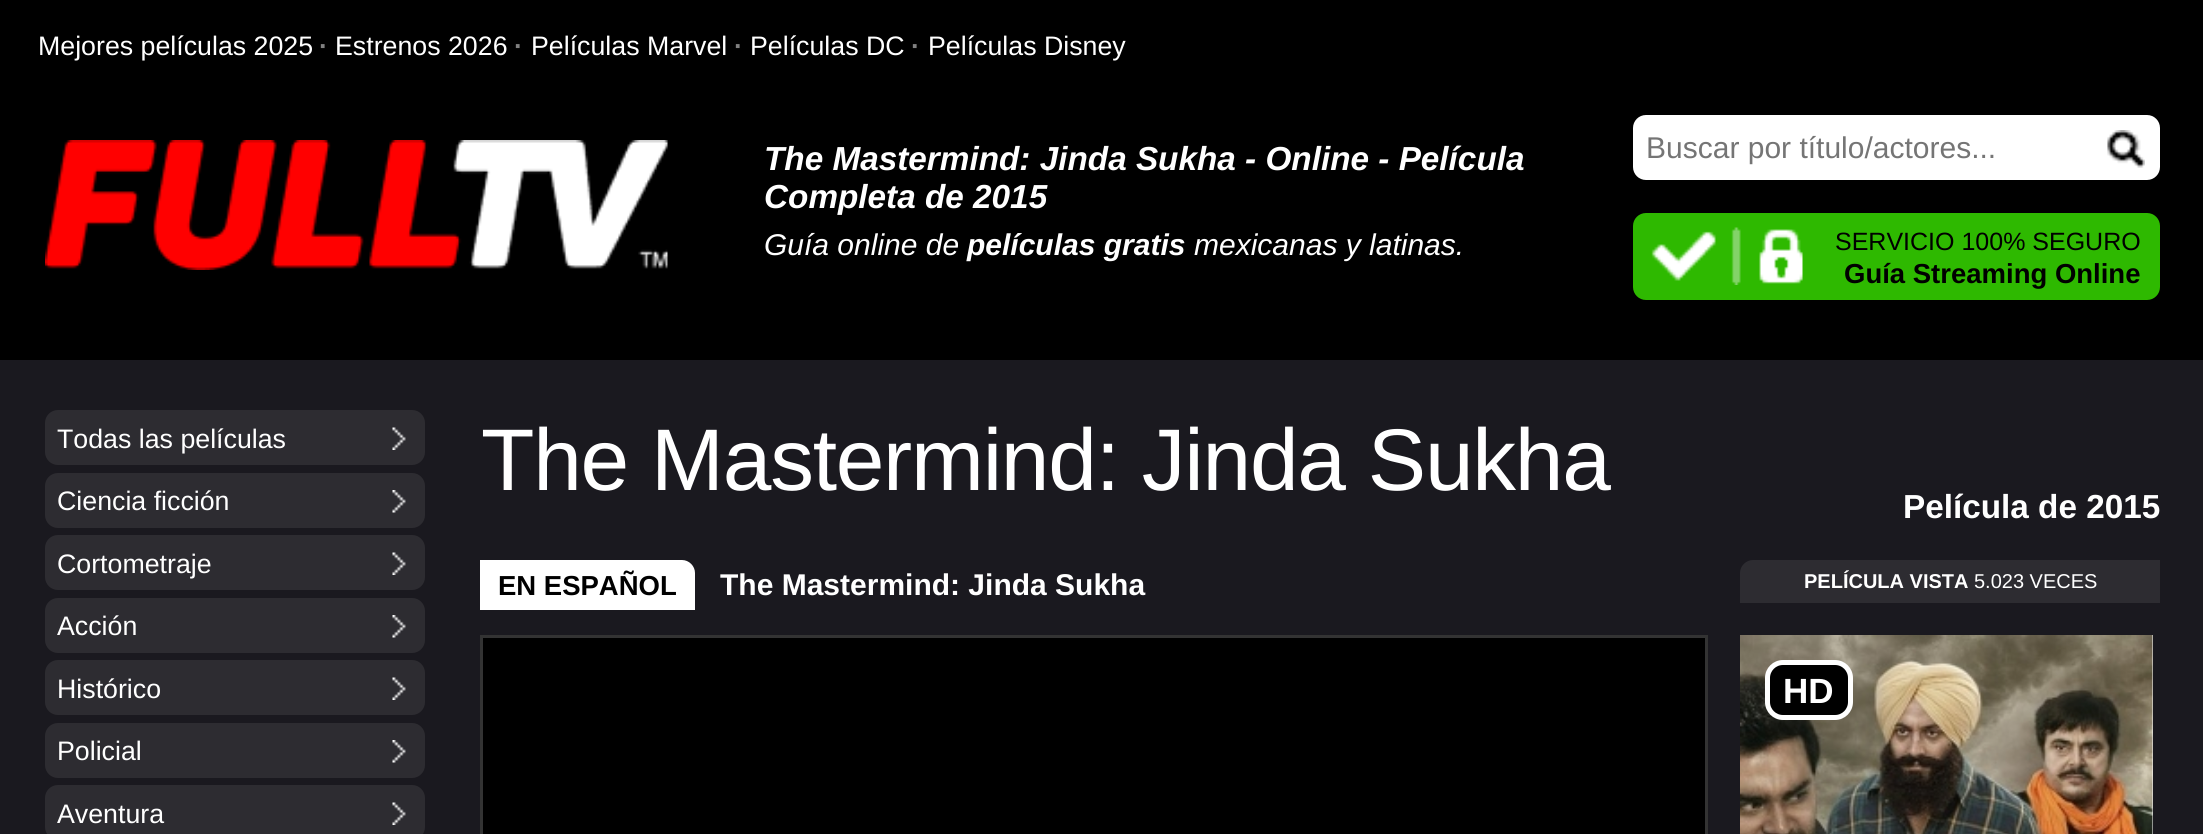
import math
import cairo

surface = cairo.ImageSurface(cairo.FORMAT_RGB24, 2203, 834)
cr = cairo.Context(surface)
options = cairo.FontOptions()
options.set_hint_metrics(cairo.HINT_METRICS_OFF)
options.set_hint_style(cairo.HINT_STYLE_NONE)
cr.set_font_options(options)
cr.set_miter_limit(4)


def rgb(code):
    cr.set_source_rgb(*(v / 255 for v in bytes.fromhex(code[-6:])))


def tracked(x, y, s, letter, word):
    cr.move_to(x, y)
    for ch in s:
        cr.show_text(ch)
        cr.rel_move_to(letter + word * (ch == ' '), 0)


def rrect(x, y, w, h, r):
    cr.new_sub_path()
    for i, (u, v) in enumerate([(x + w - r, y + h - r), (x + r, y + h - r), (x + r, y + r), (x + w - r, y + r)]):
        cr.arc(u, v, r, i * math.pi / 2, (i + 1) * math.pi / 2)
    cr.close_path()


def image(path, x, y, w, h):
    cr.save()
    cr.set_source_surface(cairo.ImageSurface.create_from_png(path), x, y)
    cr.rectangle(x, y, w, h)
    cr.fill()
    cr.restore()


rgb("#1a191f")
cr.paint()
rgb("#000000")
cr.rectangle(0, 0, 2203, 360)
cr.fill()
image("img/1.png", 45, 140, 623, 130)
rgb("#ffffff")
rrect(1633, 115, 527, 65, 13)
cr.fill()
image("img/2.png", 2107, 130, 38, 38)
rgb("#2eb900")
rrect(1633, 213, 527, 87, 13)
cr.fill()
image("img/3.png", 1651, 227, 152, 58)
rgb("#2d2c31")
rrect(45, 410, 380, 55, 13)
cr.fill()
image("img/4.png", 392, 427, 14, 23)
rrect(45, 473, 380, 55, 13)
cr.fill()
image("img/5.png", 392, 490, 14, 23)
rrect(45, 535, 380, 55, 13)
cr.fill()
image("img/4.png", 392, 552, 14, 23)
rrect(45, 598, 380, 55, 13)
cr.fill()
image("img/5.png", 392, 615, 14, 23)
rrect(45, 660, 380, 55, 13)
cr.fill()
image("img/4.png", 392, 677, 14, 23)
rrect(45, 723, 380, 55, 13)
cr.fill()
image("img/5.png", 392, 740, 14, 23)
rrect(45, 785, 380, 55, 13)
cr.fill()
image("img/4.png", 392, 802, 14, 23)
rgb("#ffffff")
cr.new_path()
cr.move_to(480, 560)
cr.line_to(682, 560)
cr.curve_to(689, 560, 695, 566, 695, 573)
cr.line_to(695, 610)
cr.line_to(480, 610)
cr.close_path()
cr.fill()
rgb("#2d2c31")
cr.new_path()
cr.move_to(1753, 560)
cr.line_to(2160, 560)
cr.line_to(2160, 603)
cr.line_to(1740, 603)
cr.line_to(1740, 573)
cr.curve_to(1740, 566, 1746, 560, 1753, 560)
cr.close_path()
cr.fill()
rgb("#000000")
cr.rectangle(481.5, 636.5, 1225, 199)
cr.fill_preserve()
rgb("#333333")
cr.set_line_width(3)
cr.stroke()
rgb("#ffffff")
cr.rectangle(2152, 635, 1, 199)
cr.fill()
image("img/6.png", 1740, 635, 413, 199)
rgb("#000000")
rrect(1767.5, 662.5, 83, 55, 15.5)
cr.fill_preserve()
rgb("#ffffff")
cr.set_line_width(5)
cr.stroke()
cr.select_font_face("Liberation Sans")
cr.set_font_size(26.75)
cr.move_to(38, 55)
cr.show_text("Mejores películas 2025")
cr.select_font_face("Liberation Sans", cairo.FONT_SLANT_NORMAL, cairo.FONT_WEIGHT_BOLD)
rgb("#808080")
cr.move_to(319, 55)
cr.show_text("·")
cr.select_font_face("Liberation Sans")
rgb("#ffffff")
cr.move_to(335, 55)
cr.show_text("Estrenos 2026")
cr.select_font_face("Liberation Sans", cairo.FONT_SLANT_NORMAL, cairo.FONT_WEIGHT_BOLD)
rgb("#808080")
cr.move_to(514, 55)
cr.show_text("·")
cr.select_font_face("Liberation Sans")
rgb("#ffffff")
cr.move_to(531, 55)
cr.show_text("Películas Marvel")
cr.select_font_face("Liberation Sans", cairo.FONT_SLANT_NORMAL, cairo.FONT_WEIGHT_BOLD)
rgb("#808080")
cr.move_to(734, 55)
cr.show_text("·")
cr.select_font_face("Liberation Sans")
rgb("#ffffff")
cr.move_to(750, 55)
cr.show_text("Películas DC")
cr.select_font_face("Liberation Sans", cairo.FONT_SLANT_NORMAL, cairo.FONT_WEIGHT_BOLD)
rgb("#808080")
cr.move_to(911, 55)
cr.show_text("·")
cr.select_font_face("Liberation Sans")
rgb("#ffffff")
cr.move_to(928, 55)
cr.show_text("Películas Disney")
cr.select_font_face("Liberation Sans", cairo.FONT_SLANT_ITALIC, cairo.FONT_WEIGHT_BOLD)
cr.set_font_size(33.3)
cr.move_to(764, 170)
cr.show_text("The Mastermind: Jinda Sukha - Online - Película")
cr.move_to(764, 208)
cr.show_text("Completa de 2015")
cr.select_font_face("Liberation Sans", cairo.FONT_SLANT_ITALIC)
cr.set_font_size(30)
cr.move_to(764, 255)
cr.show_text("Guía online de")
cr.select_font_face("Liberation Sans", cairo.FONT_SLANT_ITALIC, cairo.FONT_WEIGHT_BOLD)
cr.move_to(967, 255)
cr.show_text("películas gratis")
cr.select_font_face("Liberation Sans", cairo.FONT_SLANT_ITALIC)
cr.move_to(1194, 255)
cr.show_text("mexicanas y latinas.")
cr.select_font_face("Liberation Sans")
rgb("#757575")
cr.move_to(1646, 158)
cr.show_text("Buscar por título/actores...")
cr.set_font_size(25)
rgb("#000000")
cr.move_to(1835, 250)
cr.show_text("SERVICIO 100% SEGURO")
cr.select_font_face("Liberation Sans", cairo.FONT_SLANT_NORMAL, cairo.FONT_WEIGHT_BOLD)
cr.set_font_size(27.5)
cr.move_to(1844, 283)
cr.show_text("Guía Streaming Online")
cr.select_font_face("Liberation Sans")
cr.set_font_size(26.75)
rgb("#ffffff")
for x, y, s in [
    (57, 448, "Todas las películas"),
    (57, 510, "Ciencia ficción"),
    (57, 573, "Cortometraje"),
    (57, 635, "Acción"),
    (57, 698, "Histórico"),
    (57, 760, "Policial"),
    (57, 823, "Aventura"),
]:
    cr.move_to(x, y)
    cr.show_text(s)
cr.set_font_size(87.5)
tracked(481, 490, "The Mastermind: Jinda Sukha", -1.25, 0)
cr.select_font_face("Liberation Sans", cairo.FONT_SLANT_NORMAL, cairo.FONT_WEIGHT_BOLD)
cr.set_font_size(33.3)
cr.move_to(1903, 518)
cr.show_text("Película de 2015")
cr.set_font_size(27.5)
rgb("#000000")
cr.move_to(498, 595)
cr.show_text("EN ESPAÑOL")
cr.set_font_size(30)
rgb("#ffffff")
cr.move_to(720, 595)
cr.show_text("The Mastermind: Jinda Sukha")
cr.set_font_size(20)
cr.move_to(1804, 588)
cr.show_text("PELÍCULA VISTA")
cr.select_font_face("Liberation Sans")
cr.move_to(1974, 588)
cr.show_text("5.023 VECES")
cr.select_font_face("Liberation Sans", cairo.FONT_SLANT_NORMAL, cairo.FONT_WEIGHT_BOLD)
cr.set_font_size(35)
cr.move_to(1783, 703)
cr.show_text("HD")
surface.write_to_png("page.png")
